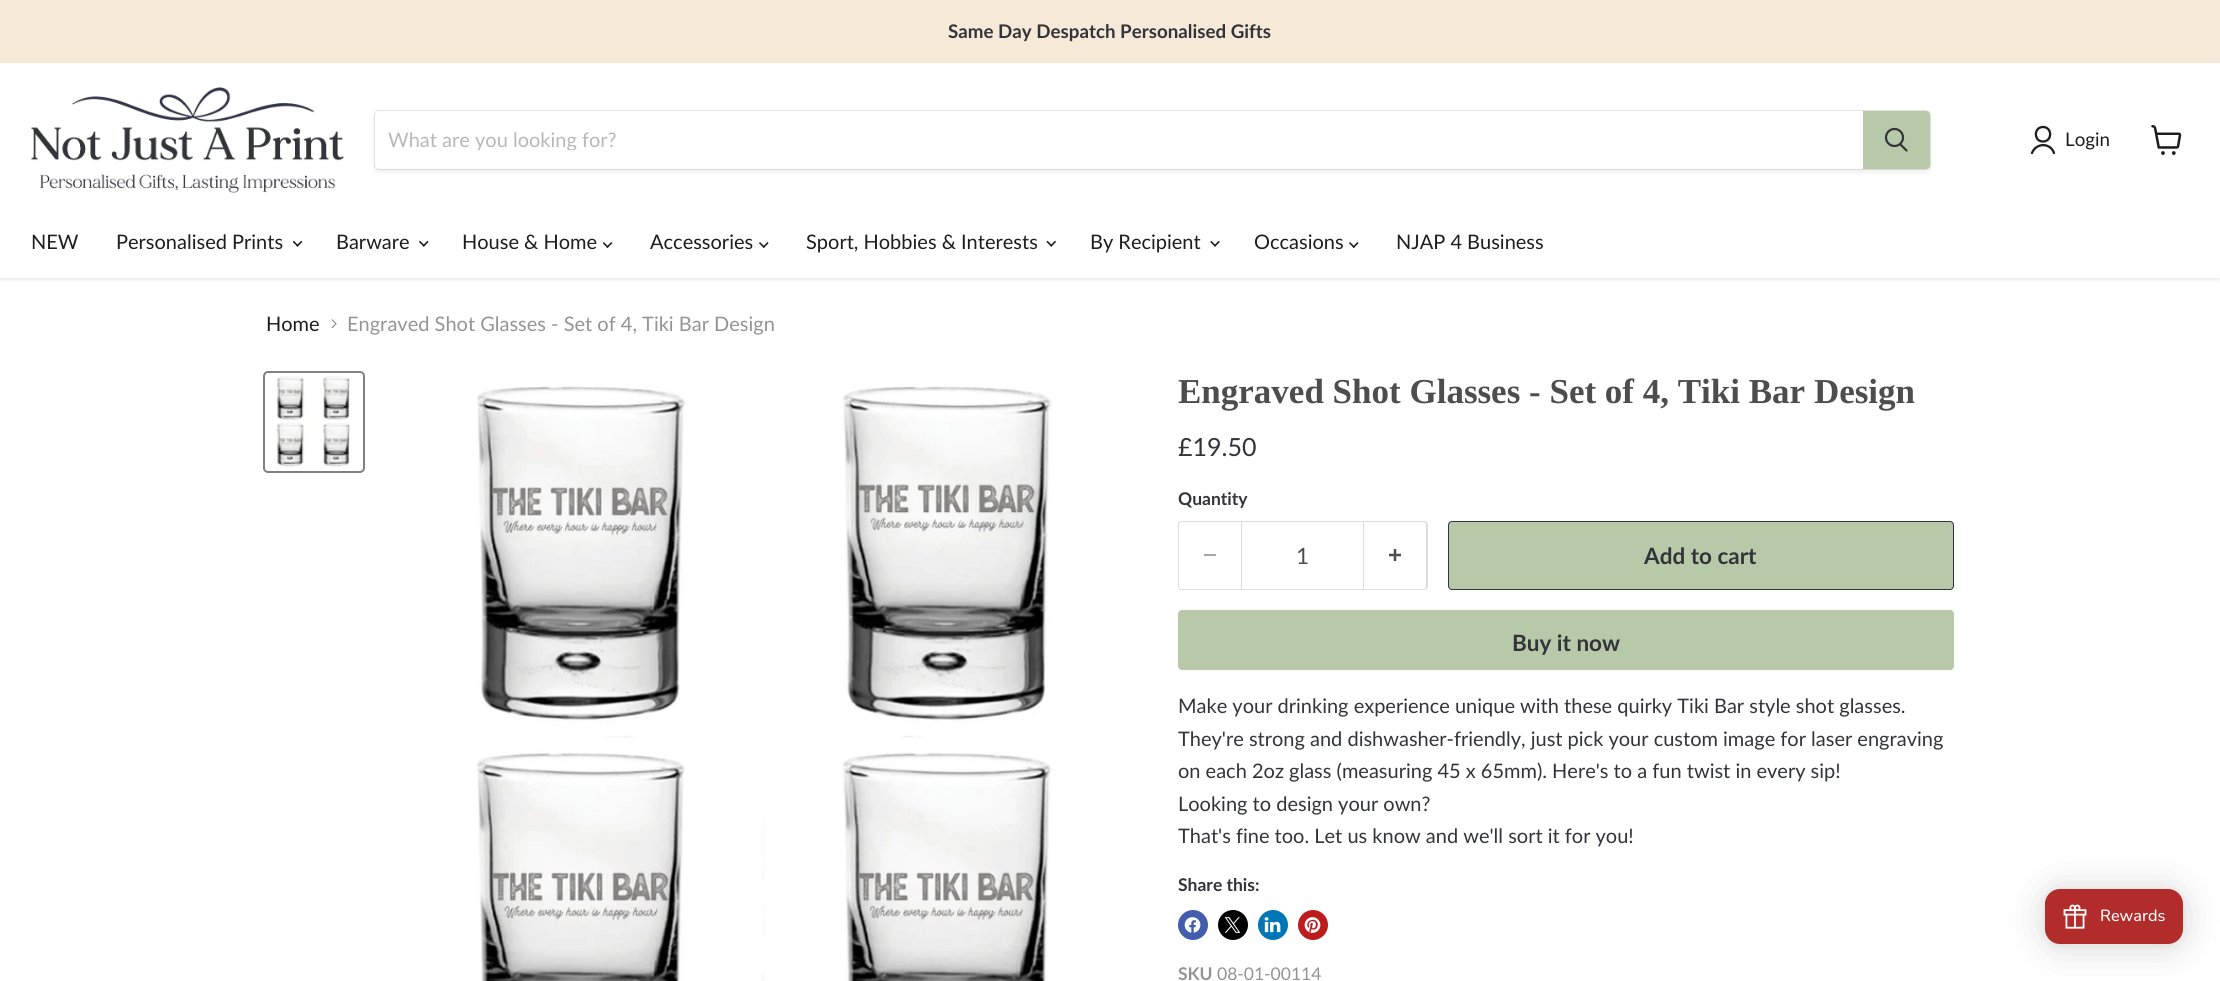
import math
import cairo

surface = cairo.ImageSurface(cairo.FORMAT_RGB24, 2220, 981)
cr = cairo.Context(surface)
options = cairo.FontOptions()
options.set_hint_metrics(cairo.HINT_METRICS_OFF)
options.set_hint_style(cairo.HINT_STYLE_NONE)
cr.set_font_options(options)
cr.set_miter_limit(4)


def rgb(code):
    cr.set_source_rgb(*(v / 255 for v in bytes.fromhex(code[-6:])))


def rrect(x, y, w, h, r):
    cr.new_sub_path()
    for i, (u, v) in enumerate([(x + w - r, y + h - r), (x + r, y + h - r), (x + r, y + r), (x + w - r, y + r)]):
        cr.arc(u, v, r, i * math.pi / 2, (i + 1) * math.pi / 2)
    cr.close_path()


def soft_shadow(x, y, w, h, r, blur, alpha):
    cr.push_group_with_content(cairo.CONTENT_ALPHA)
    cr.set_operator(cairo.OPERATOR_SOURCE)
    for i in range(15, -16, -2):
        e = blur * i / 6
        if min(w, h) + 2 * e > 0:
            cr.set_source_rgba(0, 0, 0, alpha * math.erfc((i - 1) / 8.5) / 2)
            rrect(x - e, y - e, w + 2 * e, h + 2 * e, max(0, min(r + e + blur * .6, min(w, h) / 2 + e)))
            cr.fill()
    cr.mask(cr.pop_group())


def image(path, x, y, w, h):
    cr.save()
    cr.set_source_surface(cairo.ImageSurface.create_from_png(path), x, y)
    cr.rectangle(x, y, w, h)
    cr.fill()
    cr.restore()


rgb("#ffffff")
cr.paint()
rgb("#808080")
soft_shadow(0, 64, 2220, 215, 0, 2.5, 0.25)
rgb("#f7e9d7")
cr.rectangle(0, 0, 2220, 63)
cr.fill()
rgb("#ffffff")
cr.rectangle(0, 63, 2220, 215)
cr.fill()
image("img/1.png", 31, 87, 313, 106)
rgb("#808080")
soft_shadow(374, 113, 1557, 60, 5, 2, 0.11)
rrect(374.5, 110.5, 1556, 59, 4.5)
cr.set_source_rgba(0.502, 0.502, 0.502, 0.2)
cr.set_line_width(1)
cr.stroke()
rgb("#ffffff")
cr.new_path()
cr.move_to(379, 111)
cr.line_to(1863, 111)
cr.line_to(1863, 169)
cr.line_to(379, 169)
cr.curve_to(377, 169, 375, 167, 375, 165)
cr.line_to(375, 115)
cr.curve_to(375, 113, 377, 111, 379, 111)
cr.close_path()
cr.fill()
rgb("#b7c9a8")
cr.new_path()
cr.move_to(1863.5, 111.5)
cr.line_to(1926, 111.5)
cr.curve_to(1928, 111.5, 1929.5, 113, 1929.5, 115)
cr.line_to(1929.5, 165)
cr.curve_to(1929.5, 167, 1928, 168.5, 1926, 168.5)
cr.line_to(1863.5, 168.5)
cr.close_path()
cr.fill_preserve()
cr.stroke()
cr.new_path()
cr.move_to(1906.5, 150.5)
cr.line_to(1900.5, 144.5)
rgb("#33343a")
cr.set_line_width(2.2)
cr.set_line_cap(cairo.LINE_CAP_ROUND)
cr.stroke()
cr.arc(1894.5, 137.5, 8.5, 0, 2 * math.pi)
cr.set_line_cap(cairo.LINE_CAP_BUTT)
cr.stroke()
cr.new_path()
cr.move_to(2043, 141.5)
cr.curve_to(2052.5, 141.5, 2052.5, 127, 2043, 127)
cr.curve_to(2033.5, 127, 2033.5, 141.5, 2043, 141.5)
cr.close_path()
cr.move_to(2054, 153)
cr.curve_to(2050.5, 142.5, 2036, 142.5, 2032, 153)
rgb("#1d1d1d")
cr.set_line_width(2.3)
cr.set_line_cap(cairo.LINE_CAP_ROUND)
cr.set_line_join(cairo.LINE_JOIN_ROUND)
cr.stroke()
image("img/2.png", 2151, 125, 31, 30)
image("img/3.png", 293, 240, 10, 7)
image("img/4.png", 419, 240, 10, 7)
image("img/5.png", 603, 242, 10, 6)
image("img/6.png", 759, 242, 10, 6)
image("img/7.png", 1046, 240, 10, 7)
image("img/8.png", 1210, 240, 10, 7)
image("img/6.png", 1349, 242, 10, 6)
image("img/9.png", 331, 319, 6, 10)
rrect(264, 372, 100, 100, 4)
rgb("#818181")
cr.set_line_width(2)
cr.set_line_cap(cairo.LINE_CAP_BUTT)
cr.set_line_join(cairo.LINE_JOIN_MITER)
cr.stroke()
image("img/10.png", 276, 376, 75, 91)
image("img/11.png", 476, 386, 577, 595)
rgb("#dddddd")
cr.set_fill_rule(cairo.FILL_RULE_EVEN_ODD)
cr.new_path()
cr.move_to(1181, 521)
cr.line_to(1241, 521)
cr.line_to(1241, 590)
cr.line_to(1181, 590)
cr.curve_to(1179, 590, 1178, 588, 1178, 586)
cr.line_to(1178, 525)
cr.curve_to(1178, 523, 1179, 521, 1181, 521)
cr.close_path()
cr.move_to(1181, 522)
cr.line_to(1241, 522)
cr.line_to(1241, 589)
cr.line_to(1181, 589)
cr.curve_to(1180, 589, 1179, 588, 1179, 586)
cr.line_to(1179, 525)
cr.curve_to(1179, 524, 1180, 522, 1181, 522)
cr.close_path()
cr.fill()
rgb("#a6a6a6")
cr.rectangle(1204, 554, 12, 2)
cr.fill()
cr.rectangle(1241.5, 521.5, 122, 68)
rgb("#dddddd")
cr.set_line_width(1)
cr.stroke()
cr.new_path()
cr.move_to(1364, 521)
cr.line_to(1424, 521)
cr.curve_to(1426, 521, 1428, 523, 1428, 525)
cr.line_to(1428, 586)
cr.curve_to(1428, 588, 1426, 590, 1424, 590)
cr.line_to(1364, 590)
cr.close_path()
cr.move_to(1364, 522)
cr.line_to(1424, 522)
cr.curve_to(1425, 522, 1426, 524, 1426, 525)
cr.line_to(1426, 586)
cr.curve_to(1426, 588, 1425, 589, 1424, 589)
cr.line_to(1364, 589)
cr.close_path()
cr.fill()
image("img/12.png", 1389, 549, 12, 12)
rgb("#b7c9a8")
rrect(1448.5, 521.5, 505, 68, 3.5)
cr.fill_preserve()
rgb("#33343a")
cr.stroke()
rgb("#b7c9a8")
rrect(1178.5, 610.5, 775, 59, 3.5)
cr.fill_preserve()
cr.stroke()
rgb("#425dab")
cr.arc(1193, 925, 15, 0, 2 * math.pi)
cr.fill()
image("img/13.png", 1184, 917, 17, 16)
rgb("#000000")
cr.arc(1233, 925, 15, 0, 2 * math.pi)
cr.fill()
image("img/14.png", 1224, 917, 17, 16)
rgb("#0077b5")
cr.arc(1273, 925, 15, 0, 2 * math.pi)
cr.fill()
image("img/15.png", 1264, 917, 17, 16)
rgb("#bd1c1c")
cr.arc(1313, 925, 15, 0, 2 * math.pi)
cr.fill()
image("img/16.png", 1304, 917, 17, 16)
rgb("#000000")
soft_shadow(2045, 891, 138, 55, 15, 20, 0.16)
soft_shadow(2045, 890, 138, 55, 15, 4, 0.06)
rgb("#b22c2c")
rrect(2045, 889, 138, 55, 15)
cr.fill()
image("img/17.png", 2063, 904, 24, 25)
cr.select_font_face("Lato", cairo.FONT_SLANT_NORMAL, cairo.FONT_WEIGHT_BOLD)
cr.set_font_size(18.75)
rgb("#33343a")
cr.move_to(948, 38)
cr.show_text("Same Day Despatch Personalised Gifts")
cr.save()
cr.set_fill_rule(cairo.FILL_RULE_WINDING)
cr.rectangle(388, 126, 1462, 24)
cr.clip()
cr.select_font_face("Lato")
cr.set_font_size(20)
rgb("#b8b8b8")
cr.move_to(388, 147)
cr.show_text("What are you looking for?")
cr.restore()
cr.select_font_face("Lato")
rgb("#1d1d1d")
cr.move_to(2065, 146)
cr.show_text("Login")
cr.set_font_size(20)
for x, y, s in [
    (31, 249, "NEW"),
    (116, 249, "Personalised Prints"),
    (336, 249, "Barware"),
    (462, 249, "House & Home"),
    (650, 249, "Accessories"),
    (806, 249, "Sport, Hobbies & Interests"),
    (1090, 249, "By Recipient"),
    (1254, 249, "Occasions"),
    (1396, 249, "NJAP 4 Business"),
    (266, 331, "Home"),
]:
    cr.move_to(x, y)
    cr.show_text(s)
rgb("#949494")
cr.move_to(347, 331)
cr.show_text("Engraved Shot Glasses - Set of 4, Tiki Bar Design")
cr.select_font_face("Liberation Serif", cairo.FONT_SLANT_NORMAL, cairo.FONT_WEIGHT_BOLD)
cr.set_font_size(35)
rgb("#4d4d4d")
cr.move_to(1178, 403)
cr.show_text("Engraved Shot Glasses - Set of 4, Tiki Bar Design")
cr.select_font_face("Lato")
cr.set_font_size(25)
rgb("#33343a")
cr.move_to(1178, 456)
cr.show_text("£19.50")
cr.select_font_face("Lato", cairo.FONT_SLANT_NORMAL, cairo.FONT_WEIGHT_BOLD)
cr.set_font_size(17.5)
cr.move_to(1178, 505)
cr.show_text("Quantity")
cr.select_font_face("Lato")
cr.set_font_size(22.5)
rgb("#4d4d4d")
cr.move_to(1296, 564)
cr.show_text("1")
cr.select_font_face("Lato", cairo.FONT_SLANT_NORMAL, cairo.FONT_WEIGHT_BOLD)
rgb("#33343a")
cr.move_to(1644, 564)
cr.show_text("Add to cart")
cr.move_to(1512, 651)
cr.show_text("Buy it now")
cr.select_font_face("Lato")
cr.set_font_size(20)
for x, y, s in [
    (1178, 713, "Make your drinking experience unique with these quirky Tiki Bar style shot glasses."),
    (1178, 746, "They're strong and dishwasher-friendly, just pick your custom image for laser engraving"),
    (1178, 778, "on each 2oz glass (measuring 45 x 65mm). Here's to a fun twist in every sip!"),
    (1178, 811, "Looking to design your own?"),
    (1178, 843, "That's fine too. Let us know and we'll sort it for you!"),
]:
    cr.move_to(x, y)
    cr.show_text(s)
cr.select_font_face("Lato", cairo.FONT_SLANT_NORMAL, cairo.FONT_WEIGHT_BOLD)
cr.set_font_size(17.5)
cr.move_to(1178, 891)
cr.show_text("Share this:")
rgb("#949494")
cr.move_to(1178, 980)
cr.show_text("SKU")
cr.select_font_face("Lato")
cr.move_to(1217, 980)
cr.show_text("08-01-00114")
cr.select_font_face("Nunito Medium")
cr.set_font_size(16.25)
rgb("#ffffff")
cr.move_to(2100, 921)
cr.show_text("Rewards")
surface.write_to_png("page.png")
